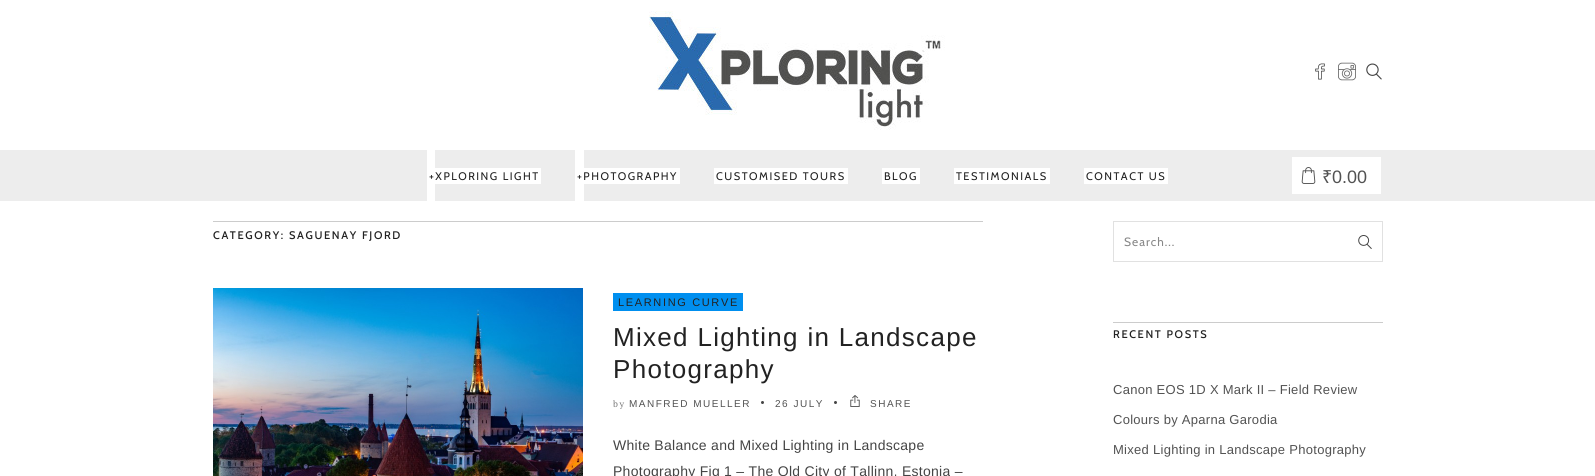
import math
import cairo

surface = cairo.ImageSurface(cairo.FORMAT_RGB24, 1595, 476)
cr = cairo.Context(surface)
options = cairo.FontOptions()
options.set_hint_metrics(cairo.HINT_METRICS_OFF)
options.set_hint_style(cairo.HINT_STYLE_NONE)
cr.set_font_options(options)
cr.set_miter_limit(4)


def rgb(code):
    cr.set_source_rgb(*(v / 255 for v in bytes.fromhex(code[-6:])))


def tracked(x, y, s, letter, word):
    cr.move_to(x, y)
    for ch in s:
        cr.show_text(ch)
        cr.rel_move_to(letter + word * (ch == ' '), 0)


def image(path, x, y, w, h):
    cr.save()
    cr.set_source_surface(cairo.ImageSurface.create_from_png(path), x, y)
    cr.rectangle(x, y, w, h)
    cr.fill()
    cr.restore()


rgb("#ffffff")
cr.paint()
image("img/1.png", 649, 11, 296, 119)
image("img/2.png", 1315, 63, 10, 17)
image("img/3.png", 1338, 62, 18, 19)
image("img/4.png", 1366, 63, 16, 17)
for x, y, w, h, color in [
    (0, 150, 1595, 51, "#ededed"),
    (427, 150, 8, 52, "#ffffff"),
    (435, 168, 106, 16, "#ffffff"),
    (575, 150, 9, 51, "#ffffff"),
    (584, 168, 96, 16, "#ffffff"),
    (714, 168, 134, 16, "#ffffff"),
    (882, 168, 38, 16, "#ffffff"),
    (954, 168, 96, 16, "#ffffff"),
    (1084, 168, 84, 16, "#ffffff"),
    (1292, 157, 89, 37, "#ffffff"),
]:
    rgb(color)
    cr.rectangle(x, y, w, h)
    cr.fill()
image("img/5.png", 1301, 167, 15, 17)
rgb("#cccccc")
cr.rectangle(213, 221, 770, 1)
cr.fill()
image("img/6.png", 213, 288, 370, 188)
rgb("#008fef")
cr.rectangle(613, 293, 130, 18)
cr.fill()
rgb("#444444")
cr.arc(762.5, 402.5, 1.5, 0, 2 * math.pi)
cr.fill()
cr.arc(835.5, 402.5, 1.5, 0, 2 * math.pi)
cr.fill()
image("img/7.png", 850, 395, 10, 12)
cr.rectangle(1113.5, 221.5, 269, 40)
rgb("#e1e1e1")
cr.set_line_width(1)
cr.stroke()
image("img/8.png", 1358, 235, 14, 14)
rgb("#cccccc")
cr.rectangle(1113, 322, 270, 1)
cr.fill()
cr.select_font_face("Cabin")
cr.set_font_size(11)
rgb("#222222")
for x, y, s in [
    (429, 180, "+XPLORING LIGHT"),
    (577, 180, "+PHOTOGRAPHY"),
    (716, 180, "CUSTOMISED TOURS"),
    (884, 180, "BLOG"),
    (956, 180, "TESTIMONIALS"),
    (1086, 180, "CONTACT US"),
]:
    tracked(x, y, s, 1.5, 0)
cr.select_font_face("Noto Sans")
cr.set_font_size(18)
rgb("#525252")
cr.move_to(1322, 183)
cr.show_text("₹")
cr.select_font_face("Liberation Sans")
cr.move_to(1332, 183)
cr.show_text("0.00")
cr.select_font_face("Cabin Medium")
cr.set_font_size(11)
rgb("#222222")
tracked(213, 239, "CATEGORY: SAGUENAY FJORD", 1.65, 0)
cr.select_font_face("Liberation Sans")
tracked(618, 306, "LEARNING CURVE", 1.65, 0)
cr.set_font_size(26)
tracked(613, 346, "Mixed Lighting in Landscape", 1.3, 0)
tracked(613, 378, "Photography", 1.3, 0)
cr.select_font_face("PT Serif")
cr.set_font_size(9)
rgb("#777777")
tracked(613, 407, "by", 1.5, 0)
cr.select_font_face("Liberation Sans")
cr.set_font_size(10)
rgb("#525252")
for x, y, s in [
    (629, 407, "MANFRED MUELLER"),
    (775, 407, "26 JULY"),
    (870, 407, "SHARE"),
]:
    tracked(x, y, s, 1.5, 0)
cr.set_font_size(14)
rgb("#444444")
tracked(613, 450, "White Balance and Mixed Lighting in Landscape", 0.28, 0)
tracked(613, 476, "Photography Fig 1 – The Old City of Tallinn, Estonia –", 0.28, 0)
cr.select_font_face("Cabin")
cr.set_font_size(12)
rgb("#888888")
tracked(1124, 246, "Search...", 1, 0)
cr.select_font_face("Cabin Medium")
cr.set_font_size(11)
rgb("#222222")
tracked(1113, 338, "RECENT POSTS", 1.65, 0)
cr.select_font_face("Liberation Sans")
cr.set_font_size(13)
rgb("#525252")
for x, y, s in [
    (1113, 394, "Canon EOS 1D X Mark II – Field Review"),
    (1113, 424, "Colours by Aparna Garodia"),
    (1113, 454, "Mixed Lighting in Landscape Photography"),
]:
    tracked(x, y, s, 0.28, 0)
surface.write_to_png("page.png")
